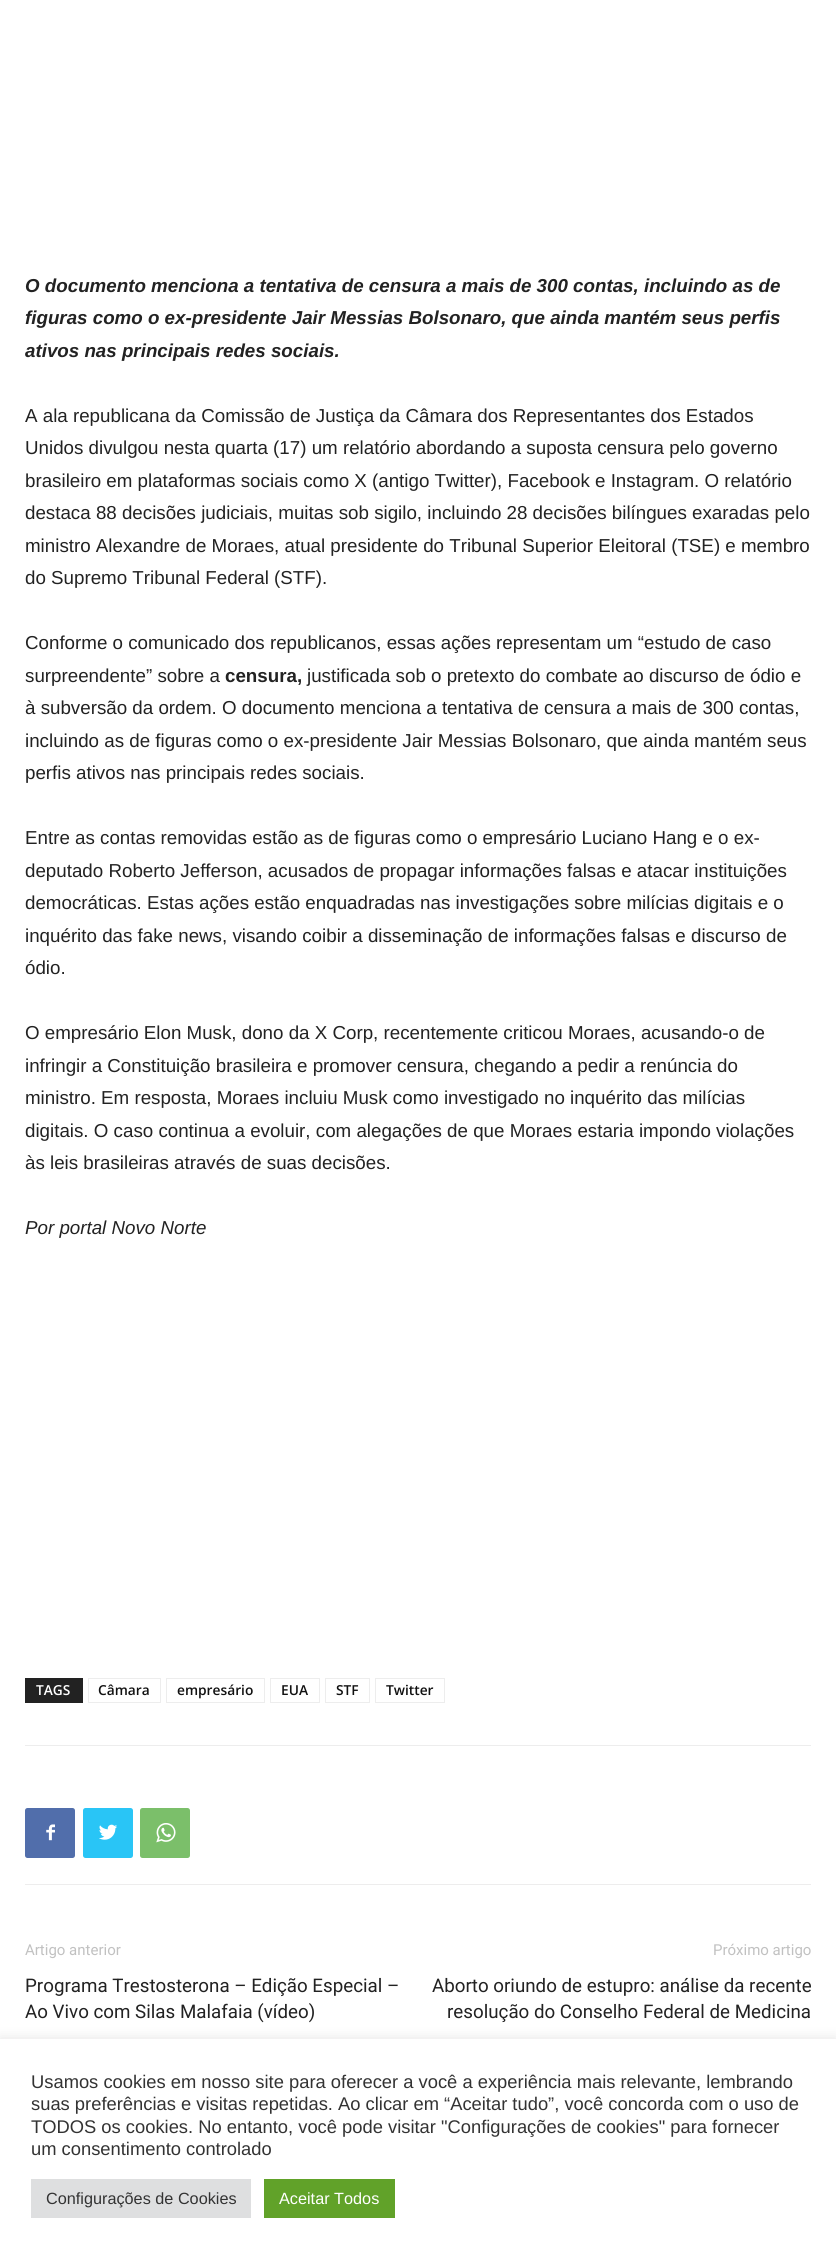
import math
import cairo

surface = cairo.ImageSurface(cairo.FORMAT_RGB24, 836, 2255)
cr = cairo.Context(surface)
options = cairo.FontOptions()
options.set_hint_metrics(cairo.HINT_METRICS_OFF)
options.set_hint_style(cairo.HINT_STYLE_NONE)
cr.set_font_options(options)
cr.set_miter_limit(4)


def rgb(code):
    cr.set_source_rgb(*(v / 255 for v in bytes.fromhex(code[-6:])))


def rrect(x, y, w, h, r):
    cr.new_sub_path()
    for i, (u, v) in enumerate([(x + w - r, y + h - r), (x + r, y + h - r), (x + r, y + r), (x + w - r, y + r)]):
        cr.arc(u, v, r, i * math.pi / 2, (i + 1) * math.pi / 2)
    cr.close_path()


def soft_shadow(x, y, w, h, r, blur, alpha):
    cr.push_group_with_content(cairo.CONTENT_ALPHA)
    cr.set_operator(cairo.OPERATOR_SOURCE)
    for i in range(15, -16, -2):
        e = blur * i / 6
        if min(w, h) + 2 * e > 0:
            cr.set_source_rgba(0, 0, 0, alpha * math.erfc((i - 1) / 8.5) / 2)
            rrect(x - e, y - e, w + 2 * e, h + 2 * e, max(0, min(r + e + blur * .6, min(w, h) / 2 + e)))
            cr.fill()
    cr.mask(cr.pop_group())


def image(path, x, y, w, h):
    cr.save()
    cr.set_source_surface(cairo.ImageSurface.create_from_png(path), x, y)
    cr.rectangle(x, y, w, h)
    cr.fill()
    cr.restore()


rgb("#ffffff")
cr.paint()
rgb("#222222")
cr.rectangle(25, 1678, 58, 25)
cr.fill()
cr.rectangle(88.5, 1678.5, 72, 24)
rgb("#ededed")
cr.set_line_width(1)
cr.stroke()
cr.rectangle(166.5, 1678.5, 98, 24)
cr.stroke()
cr.rectangle(270.5, 1678.5, 49, 24)
cr.stroke()
cr.rectangle(325.5, 1678.5, 44, 24)
cr.stroke()
cr.rectangle(375.5, 1678.5, 69, 24)
cr.stroke()
cr.rectangle(25, 1745, 786, 1)
cr.fill()
cr.rectangle(25, 1884, 786, 1)
cr.fill()
rgb("#516eab")
rrect(25, 1808, 50, 50, 2.5)
cr.fill()
image("img/1.png", 46, 1824, 9, 17)
rgb("#29c5f6")
rrect(83, 1808, 50, 50, 2.5)
cr.fill()
image("img/2.png", 99, 1824, 18, 16)
rgb("#7bbf6a")
rrect(140, 1808, 50, 50, 2.5)
cr.fill()
image("img/3.png", 156, 1823, 20, 20)
rgb("#acabab")
soft_shadow(0, 2038, 836, 216, 0, 6, 0.3)
for x, y, w, h, color in [
    (0, 2039, 836, 216, "#ffffff"),
    (31, 2179, 220, 39, "#dedfe0"),
    (264, 2179, 131, 39, "#61a229"),
]:
    rgb(color)
    cr.rectangle(x, y, w, h)
    cr.fill()
cr.select_font_face("Liberation Sans", cairo.FONT_SLANT_ITALIC, cairo.FONT_WEIGHT_BOLD)
cr.set_font_size(18.75)
rgb("#222222")
for x, y, s in [
    (25, 292, "O documento menciona a tentativa de censura a mais de 300 contas, incluindo as de"),
    (25, 324, "figuras como o ex-presidente Jair Messias Bolsonaro, que ainda mantém seus perfis"),
    (25, 357, "ativos nas principais redes sociais."),
]:
    cr.move_to(x, y)
    cr.show_text(s)
cr.select_font_face("Liberation Sans")
for x, y, s in [
    (25, 422, "A ala republicana da Comissão de Justiça da Câmara dos Representantes dos Estados"),
    (25, 454, "Unidos divulgou nesta quarta (17) um relatório abordando a suposta censura pelo governo"),
    (25, 487, "brasileiro em plataformas sociais como X (antigo Twitter), Facebook e Instagram. O relatório"),
    (25, 519, "destaca 88 decisões judiciais, muitas sob sigilo, incluindo 28 decisões bilíngues exaradas pelo"),
    (25, 552, "ministro Alexandre de Moraes, atual presidente do Tribunal Superior Eleitoral (TSE) e membro"),
    (25, 584, "do Supremo Tribunal Federal (STF)."),
    (25, 649, "Conforme o comunicado dos republicanos, essas ações representam um “estudo de caso"),
    (25, 682, "surpreendente” sobre a"),
]:
    cr.move_to(x, y)
    cr.show_text(s)
cr.select_font_face("Liberation Sans", cairo.FONT_SLANT_NORMAL, cairo.FONT_WEIGHT_BOLD)
cr.move_to(225, 682)
cr.show_text("censura,")
cr.select_font_face("Liberation Sans")
for x, y, s in [
    (307, 682, "justificada sob o pretexto do combate ao discurso de ódio e"),
    (25, 714, "à subversão da ordem. O documento menciona a tentativa de censura a mais de 300 contas,"),
    (25, 747, "incluindo as de figuras como o ex-presidente Jair Messias Bolsonaro, que ainda mantém seus"),
    (25, 779, "perfis ativos nas principais redes sociais."),
    (25, 844, "Entre as contas removidas estão as de figuras como o empresário Luciano Hang e o ex-"),
    (25, 877, "deputado Roberto Jefferson, acusados de propagar informações falsas e atacar instituições"),
    (25, 909, "democráticas. Estas ações estão enquadradas nas investigações sobre milícias digitais e o"),
    (25, 942, "inquérito das fake news, visando coibir a disseminação de informações falsas e discurso de"),
    (25, 974, "ódio."),
    (25, 1039, "O empresário Elon Musk, dono da X Corp, recentemente criticou Moraes, acusando-o de"),
    (25, 1072, "infringir a Constituição brasileira e promover censura, chegando a pedir a renúncia do"),
    (25, 1104, "ministro. Em resposta, Moraes incluiu Musk como investigado no inquérito das milícias"),
    (25, 1137, "digitais. O caso continua a evoluir, com alegações de que Moraes estaria impondo violações"),
    (25, 1169, "às leis brasileiras através de suas decisões."),
]:
    cr.move_to(x, y)
    cr.show_text(s)
cr.select_font_face("Liberation Sans", cairo.FONT_SLANT_ITALIC)
cr.move_to(25, 1234)
cr.show_text("Por portal Novo Norte")
cr.select_font_face("Open Sans SemiBold")
cr.set_font_size(13.75)
rgb("#ffffff")
cr.move_to(36, 1695)
cr.show_text("TAGS")
rgb("#111111")
for x, y, s in [
    (98, 1695, "Câmara"),
    (177, 1695, "empresário"),
    (281, 1695, "EUA"),
    (336, 1695, "STF"),
    (386, 1695, "Twitter"),
]:
    cr.move_to(x, y)
    cr.show_text(s)
cr.select_font_face("Roboto")
cr.set_font_size(15)
rgb("#c1c1c1")
cr.move_to(25, 1955)
cr.show_text("Artigo anterior")
cr.set_font_size(18.75)
rgb("#222222")
cr.move_to(25, 1992)
cr.show_text("Programa Trestosterona – Edição Especial –")
cr.move_to(25, 2018)
cr.show_text("Ao Vivo com Silas Malafaia (vídeo)")
cr.set_font_size(15)
rgb("#c1c1c1")
cr.move_to(713, 1955)
cr.show_text("Próximo artigo")
cr.set_font_size(18.75)
rgb("#222222")
cr.move_to(432, 1992)
cr.show_text("Aborto oriundo de estupro: análise da recente")
cr.move_to(447, 2018)
cr.show_text("resolução do Conselho Federal de Medicina")
cr.select_font_face("Liberation Sans")
cr.set_font_size(18.35)
rgb("#333333")
for x, y, s in [
    (31, 2088, "Usamos cookies em nosso site para oferecer a você a experiência mais relevante, lembrando"),
    (31, 2110, "suas preferências e visitas repetidas. Ao clicar em “Aceitar tudo”, você concorda com o uso de"),
    (31, 2133, "TODOS os cookies. No entanto, você pode visitar \"Configurações de cookies\" para fornecer"),
    (31, 2155, "um consentimento controlado"),
]:
    cr.move_to(x, y)
    cr.show_text(s)
cr.set_font_size(16.25)
cr.move_to(46, 2204)
cr.show_text("Configurações de Cookies")
rgb("#ffffff")
cr.move_to(279, 2204)
cr.show_text("Aceitar Todos")
surface.write_to_png("page.png")
